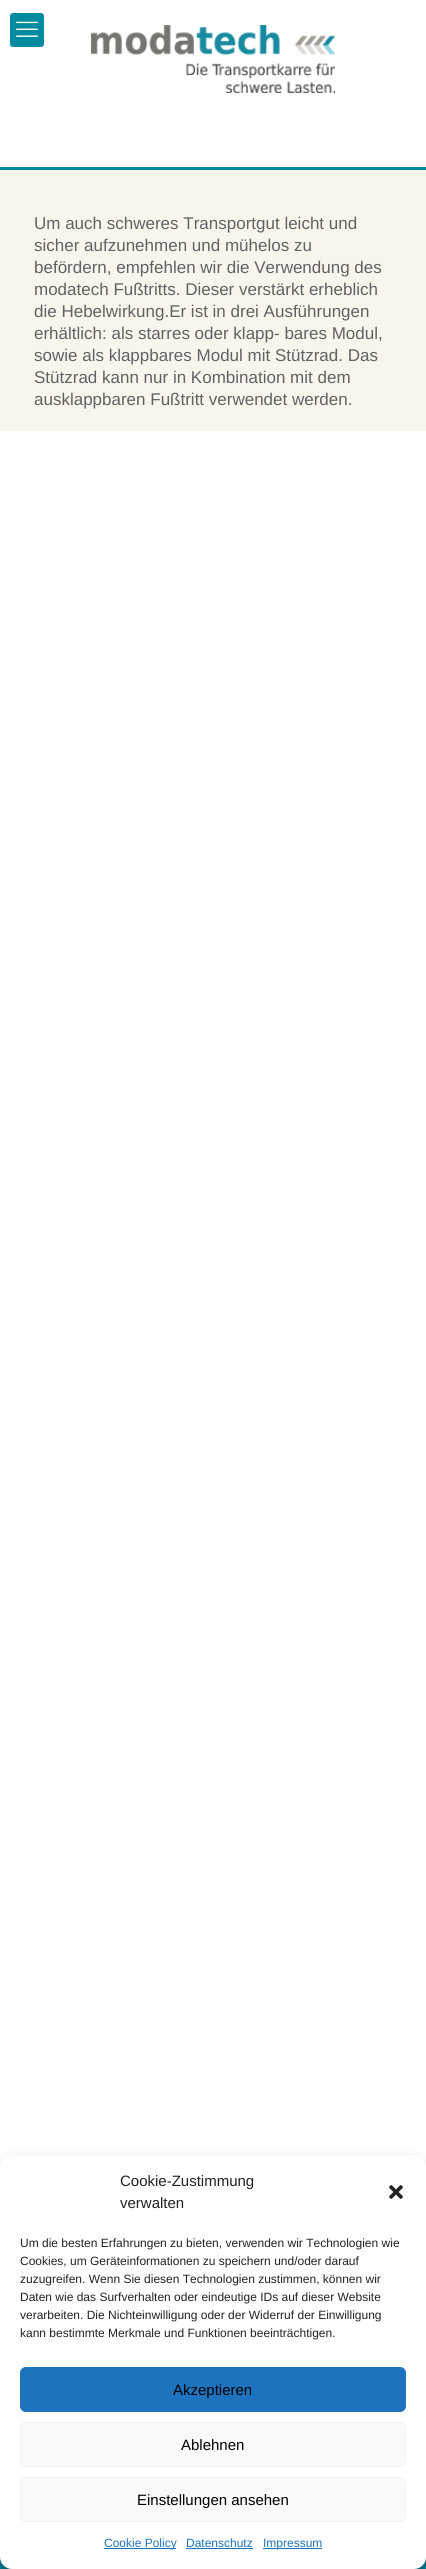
import math
import cairo

surface = cairo.ImageSurface(cairo.FORMAT_RGB24, 426, 2569)
cr = cairo.Context(surface)
options = cairo.FontOptions()
options.set_hint_metrics(cairo.HINT_METRICS_OFF)
options.set_hint_style(cairo.HINT_STYLE_NONE)
cr.set_font_options(options)
cr.set_miter_limit(4)


def rgb(code):
    cr.set_source_rgb(*(v / 255 for v in bytes.fromhex(code[-6:])))


def rrect(x, y, w, h, r):
    cr.new_sub_path()
    for i, (u, v) in enumerate([(x + w - r, y + h - r), (x + r, y + h - r), (x + r, y + r), (x + w - r, y + r)]):
        cr.arc(u, v, r, i * math.pi / 2, (i + 1) * math.pi / 2)
    cr.close_path()


def soft_shadow(x, y, w, h, r, blur, alpha):
    cr.push_group_with_content(cairo.CONTENT_ALPHA)
    cr.set_operator(cairo.OPERATOR_SOURCE)
    for i in range(15, -16, -2):
        e = blur * i / 6
        if min(w, h) + 2 * e > 0:
            cr.set_source_rgba(0, 0, 0, alpha * math.erfc((i - 1) / 8.5) / 2)
            rrect(x - e, y - e, w + 2 * e, h + 2 * e, max(0, min(r + e + blur * .6, min(w, h) / 2 + e)))
            cr.fill()
    cr.mask(cr.pop_group())


def image(path, x, y, w, h):
    cr.save()
    cr.set_source_surface(cairo.ImageSurface.create_from_png(path), x, y)
    cr.rectangle(x, y, w, h)
    cr.fill()
    cr.restore()


rgb("#ffffff")
cr.paint()
rgb("#f7f5ec")
cr.rectangle(0, 170, 426, 261)
cr.fill()
rgb("#008ba0")
cr.rectangle(0, 167, 426, 3)
cr.fill()
rrect(10, 13, 34, 34, 3)
cr.fill()
image("img/1.png", 16, 21, 22, 16)
image("img/2.png", 91, 25, 244, 68)
cr.rectangle(0, 2557, 426, 12)
cr.fill()
rgb("#000000")
soft_shadow(0, 2161, 426, 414, 12, 3, 0.23)
soft_shadow(0, 2165, 426, 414, 12, 10, 0.19)
rgb("#ffffff")
rrect(0, 2155, 426, 414, 12)
cr.fill()
image("img/3.png", 389, 2185, 14, 14)
rgb("#1e73be")
rrect(20.5, 2367.5, 385, 44, 5.5)
cr.fill_preserve()
cr.set_line_width(1)
cr.stroke()
rgb("#f9f9f9")
rrect(20.5, 2422.5, 385, 44, 5.5)
cr.fill_preserve()
rgb("#f2f2f2")
cr.stroke()
rgb("#f9f9f9")
rrect(20.5, 2477.5, 385, 44, 5.5)
cr.fill_preserve()
rgb("#f2f2f2")
cr.stroke()
for x, y, w, h, color in [
    (104, 2548, 72, 1, "#1e73be"),
    (186, 2548, 67, 1, "#1e73be"),
    (263, 2548, 59, 1, "#1e73be"),
]:
    rgb(color)
    cr.rectangle(x, y, w, h)
    cr.fill()
cr.select_font_face("Liberation Sans")
cr.set_font_size(17)
rgb("#626262")
for x, y, s in [
    (34, 229, "Um auch schweres Transportgut leicht und"),
    (34, 251, "sicher aufzunehmen und mühelos zu"),
    (34, 273, "befördern, empfehlen wir die Verwendung des"),
    (34, 295, "modatech Fußtritts. Dieser verstärkt erheblich"),
    (34, 317, "die Hebelwirkung.Er ist in drei Ausführungen"),
    (34, 339, "erhältlich: als starres oder klapp- bares Modul,"),
    (34, 361, "sowie als klappbares Modul mit Stützrad. Das"),
    (34, 383, "Stützrad kann nur in Kombination mit dem"),
    (34, 405, "ausklappbaren Fußtritt verwendet werden."),
]:
    cr.move_to(x, y)
    cr.show_text(s)
cr.set_font_size(15)
rgb("#222222")
cr.move_to(120, 2186)
cr.show_text("Cookie-Zustimmung")
cr.move_to(120, 2208)
cr.show_text("verwalten")
cr.set_font_size(12)
for x, y, s in [
    (20, 2247, "Um die besten Erfahrungen zu bieten, verwenden wir Technologien wie"),
    (20, 2265, "Cookies, um Geräteinformationen zu speichern und/oder darauf"),
    (20, 2283, "zuzugreifen. Wenn Sie diesen Technologien zustimmen, können wir"),
    (20, 2301, "Daten wie das Surfverhalten oder eindeutige IDs auf dieser Website"),
    (20, 2319, "verarbeiten. Die Nichteinwilligung oder der Widerruf der Einwilligung"),
    (20, 2337, "kann bestimmte Merkmale und Funktionen beeinträchtigen."),
]:
    cr.move_to(x, y)
    cr.show_text(s)
cr.set_font_size(15)
rgb("#000000")
for x, y, s in [
    (173, 2395, "Akzeptieren"),
    (181, 2450, "Ablehnen"),
    (137, 2505, "Einstellungen ansehen"),
]:
    cr.move_to(x, y)
    cr.show_text(s)
cr.set_font_size(12)
rgb("#1e73be")
for x, y, s in [
    (104, 2547, "Cookie Policy"),
    (186, 2547, "Datenschutz"),
    (263, 2547, "Impressum"),
]:
    cr.move_to(x, y)
    cr.show_text(s)
surface.write_to_png("page.png")
